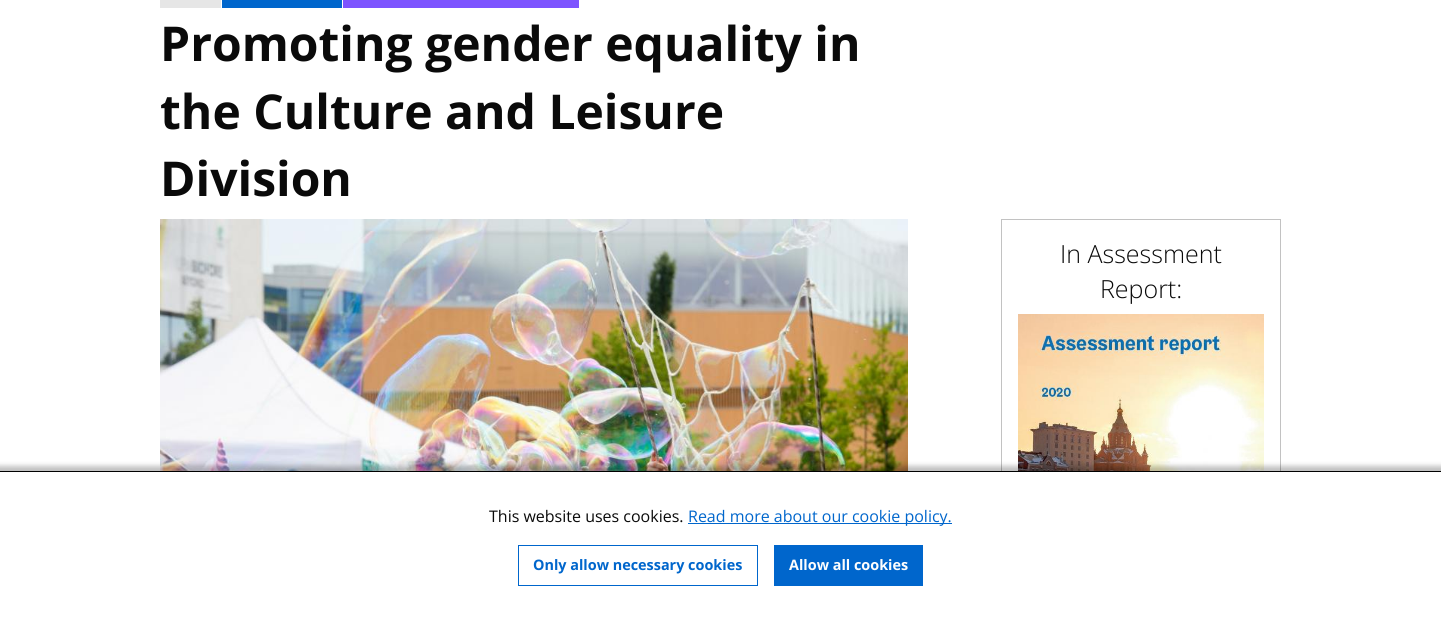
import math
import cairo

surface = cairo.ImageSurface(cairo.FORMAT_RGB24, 1441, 618)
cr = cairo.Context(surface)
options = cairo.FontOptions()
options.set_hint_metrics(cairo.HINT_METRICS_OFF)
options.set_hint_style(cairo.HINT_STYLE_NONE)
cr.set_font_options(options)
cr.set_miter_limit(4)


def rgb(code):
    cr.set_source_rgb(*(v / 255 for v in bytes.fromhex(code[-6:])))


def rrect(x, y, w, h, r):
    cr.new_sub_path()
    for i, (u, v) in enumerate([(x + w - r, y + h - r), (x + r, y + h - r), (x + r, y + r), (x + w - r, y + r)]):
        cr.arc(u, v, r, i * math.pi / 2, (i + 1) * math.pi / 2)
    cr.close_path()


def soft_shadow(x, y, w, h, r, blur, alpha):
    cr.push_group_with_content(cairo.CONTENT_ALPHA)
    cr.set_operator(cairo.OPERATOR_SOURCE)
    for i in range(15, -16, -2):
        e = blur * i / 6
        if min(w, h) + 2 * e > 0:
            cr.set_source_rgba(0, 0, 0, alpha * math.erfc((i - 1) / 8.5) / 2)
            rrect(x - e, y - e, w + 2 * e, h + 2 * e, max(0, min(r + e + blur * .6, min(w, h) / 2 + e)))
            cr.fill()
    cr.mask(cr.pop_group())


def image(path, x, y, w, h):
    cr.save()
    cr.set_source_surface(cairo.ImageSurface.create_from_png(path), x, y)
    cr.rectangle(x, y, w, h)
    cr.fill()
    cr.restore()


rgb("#ffffff")
cr.paint()
for x, y, w, h, color in [
    (160, 0, 61, 8, "#e6e6e6"),
    (222, 0, 120, 8, "#0066cc"),
    (343, 0, 236, 8, "#7d54ff"),
]:
    rgb(color)
    cr.rectangle(x, y, w, h)
    cr.fill()
image("img/1.png", 160, 219, 748, 252)
cr.rectangle(1001.5, 219.5, 279, 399)
rgb("#c2c2c2")
cr.set_line_width(1)
cr.stroke()
image("img/2.png", 1018, 314, 246, 157)
rgb("#000000")
soft_shadow(-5, 466, 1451, 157, 0, 2.5, 0.25)
for x, y, w, h, color in [
    (0, 472, 1441, 146, "#ffffff"),
    (0, 471, 1441, 1, "#000000"),
    (688, 523, 264, 1, "#0066cc"),
]:
    rgb(color)
    cr.rectangle(x, y, w, h)
    cr.fill()
cr.rectangle(518.5, 545.5, 239, 40)
cr.stroke()
cr.rectangle(774, 545, 149, 41)
cr.fill()
cr.select_font_face("Open Sans", cairo.FONT_SLANT_NORMAL, cairo.FONT_WEIGHT_BOLD)
cr.set_font_size(48)
rgb("#0a0a0a")
for x, y, s in [
    (160, 61, "Promoting gender equality in"),
    (160, 129, "the Culture and Leisure"),
    (160, 196, "Division"),
]:
    cr.move_to(x, y)
    cr.show_text(s)
cr.select_font_face("Open Sans Light")
cr.set_font_size(25)
cr.move_to(1060, 263)
cr.show_text("In Assessment")
cr.move_to(1100, 298)
cr.show_text("Report:")
cr.select_font_face("Open Sans")
cr.set_font_size(16)
cr.move_to(489, 522)
cr.show_text("This website uses cookies.")
rgb("#0066cc")
cr.move_to(688, 522)
cr.show_text("Read more about our cookie policy.")
cr.select_font_face("Open Sans", cairo.FONT_SLANT_NORMAL, cairo.FONT_WEIGHT_BOLD)
cr.set_font_size(14.4)
cr.move_to(533, 570)
cr.show_text("Only allow necessary cookies")
rgb("#fefefe")
cr.move_to(789, 570)
cr.show_text("Allow all cookies")
surface.write_to_png("page.png")
